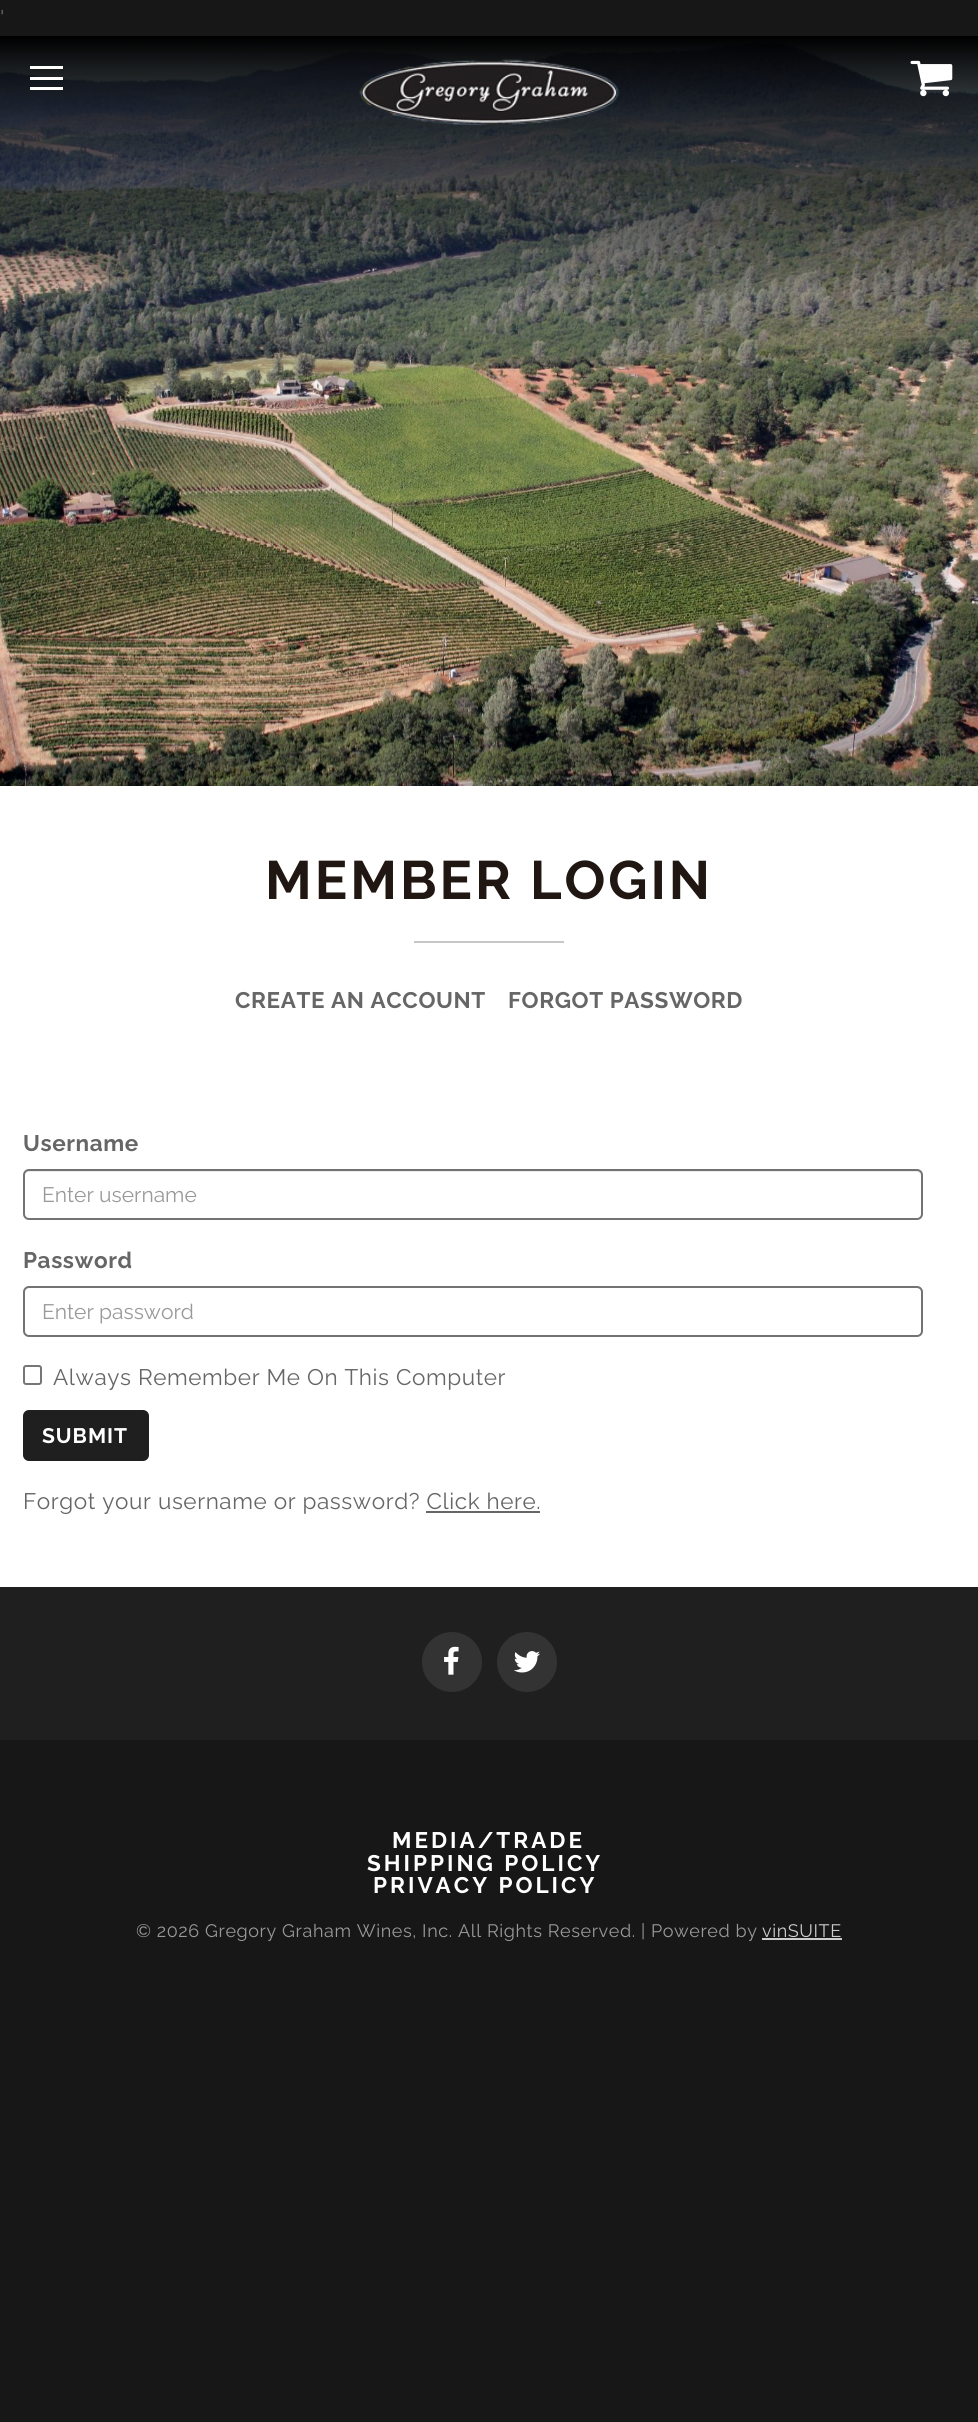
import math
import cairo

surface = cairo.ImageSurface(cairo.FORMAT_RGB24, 978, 2422)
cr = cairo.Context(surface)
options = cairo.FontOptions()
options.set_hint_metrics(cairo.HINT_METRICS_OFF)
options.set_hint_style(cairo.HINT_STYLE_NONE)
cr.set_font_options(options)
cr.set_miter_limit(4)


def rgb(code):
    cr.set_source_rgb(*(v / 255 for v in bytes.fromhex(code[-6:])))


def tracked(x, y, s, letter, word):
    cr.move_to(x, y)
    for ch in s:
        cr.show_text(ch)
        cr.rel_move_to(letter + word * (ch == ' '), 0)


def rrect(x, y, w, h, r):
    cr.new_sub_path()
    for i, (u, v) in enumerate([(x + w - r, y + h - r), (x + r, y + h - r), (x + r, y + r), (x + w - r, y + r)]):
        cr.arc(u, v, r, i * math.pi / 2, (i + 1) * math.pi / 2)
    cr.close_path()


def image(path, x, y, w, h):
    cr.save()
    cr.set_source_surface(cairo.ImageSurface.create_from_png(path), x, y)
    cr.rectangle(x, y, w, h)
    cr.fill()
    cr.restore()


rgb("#171717")
cr.paint()
image("img/1.png", 0, 36, 978, 750)
for x, y, w, h, color in [
    (30, 66, 33, 3, "#ffffff"),
    (30, 77, 33, 3, "#ffffff"),
    (30, 87, 33, 3, "#ffffff"),
]:
    rgb(color)
    cr.rectangle(x, y, w, h)
    cr.fill()
image("img/2.png", 359, 59, 261, 66)
image("img/3.png", 910, 60, 43, 37)
cr.rectangle(0, 786, 978, 801)
cr.fill()
rgb("#c7c7c7")
cr.rectangle(414, 941, 150, 2)
cr.fill()
rgb("#ececec")
cr.new_path()
cr.move_to(28, 1172)
cr.line_to(916, 1172)
cr.curve_to(919, 1172, 921, 1174, 921, 1176)
cr.curve_to(921, 1173, 919, 1170, 916, 1170)
cr.line_to(29, 1170)
cr.curve_to(26, 1170, 24, 1173, 24, 1176)
cr.curve_to(24, 1174, 26, 1172, 28, 1172)
cr.close_path()
cr.fill()
rrect(24, 1170, 898, 49, 5)
rgb("#737373")
cr.stroke()
rgb("#ececec")
cr.new_path()
cr.move_to(28, 1288)
cr.line_to(916, 1288)
cr.curve_to(919, 1288, 921, 1291, 921, 1293)
cr.curve_to(921, 1290, 919, 1287, 916, 1287)
cr.line_to(29, 1287)
cr.curve_to(26, 1287, 24, 1290, 24, 1293)
cr.curve_to(24, 1291, 26, 1288, 28, 1288)
cr.close_path()
cr.fill()
rrect(24, 1287, 898, 49, 5)
rgb("#737373")
cr.stroke()
rrect(24, 1366, 17, 18, 2)
rgb("#767676")
cr.stroke()
rgb("#1f1f1f")
rrect(23, 1410, 126, 51, 6)
cr.fill()
rgb("#666666")
cr.rectangle(426, 1511, 114, 2)
cr.fill()
rgb("#1f1f1f")
cr.rectangle(0, 1587, 978, 153)
cr.fill()
rgb("#333333")
cr.arc(452, 1662, 30, 0, 2 * math.pi)
cr.fill()
image("img/4.png", 444, 1646, 15, 29)
cr.arc(527, 1662, 30, 0, 2 * math.pi)
cr.fill()
image("img/5.png", 514, 1651, 26, 22)
rgb("#cccccc")
cr.rectangle(762, 1938, 80, 2)
cr.fill()
cr.select_font_face("Raleway")
cr.set_font_size(22.5)
rgb("#666666")
tracked(0, 26, "'", 0.6, 0)
cr.select_font_face("Raleway", cairo.FONT_SLANT_NORMAL, cairo.FONT_WEIGHT_BOLD)
cr.set_font_size(54)
rgb("#201713")
tracked(265, 899, "MEMBER LOGIN", 3, 0)
cr.set_font_size(22.5)
rgb("#666666")
for x, y, s in [
    (235, 1008, "CREATE AN ACCOUNT"),
    (508, 1008, "FORGOT PASSWORD"),
    (23, 1151, "Username"),
]:
    tracked(x, y, s, 0.6, 0)
cr.select_font_face("Raleway")
cr.set_font_size(21)
rgb("#999999")
cr.move_to(42, 1202)
cr.show_text("Enter username")
cr.select_font_face("Raleway", cairo.FONT_SLANT_NORMAL, cairo.FONT_WEIGHT_BOLD)
cr.set_font_size(22.5)
rgb("#666666")
tracked(23, 1268, "Password", 0.6, 0)
cr.select_font_face("Raleway")
cr.set_font_size(21)
rgb("#999999")
cr.move_to(42, 1319)
cr.show_text("Enter password")
cr.set_font_size(22.5)
rgb("#666666")
tracked(53, 1385, "Always Remember Me On This Computer", 0.6, 0)
cr.select_font_face("Raleway", cairo.FONT_SLANT_NORMAL, cairo.FONT_WEIGHT_BOLD)
cr.set_font_size(21)
rgb("#ffffff")
tracked(42, 1443, "SUBMIT", 1, 0)
cr.select_font_face("Raleway")
cr.set_font_size(22.5)
rgb("#666666")
tracked(23, 1509, "Forgot your username or password? Click here.", 0.6, 0)
cr.select_font_face("Raleway", cairo.FONT_SLANT_NORMAL, cairo.FONT_WEIGHT_BOLD)
rgb("#ffffff")
for x, y, s in [
    (392, 1848, "MEDIA/TRADE"),
    (367, 1871, "SHIPPING POLICY"),
    (373, 1893, "PRIVACY POLICY"),
]:
    tracked(x, y, s, 3, 0)
cr.select_font_face("Raleway")
cr.set_font_size(18)
rgb("#999999")
tracked(136, 1937, "© 2026 Gregory Graham Wines, Inc. All Rights Reserved. | Powered by", 0.6, 0)
rgb("#cccccc")
tracked(762, 1937, "vinSUITE", 0.6, 0)
surface.write_to_png("page.png")
